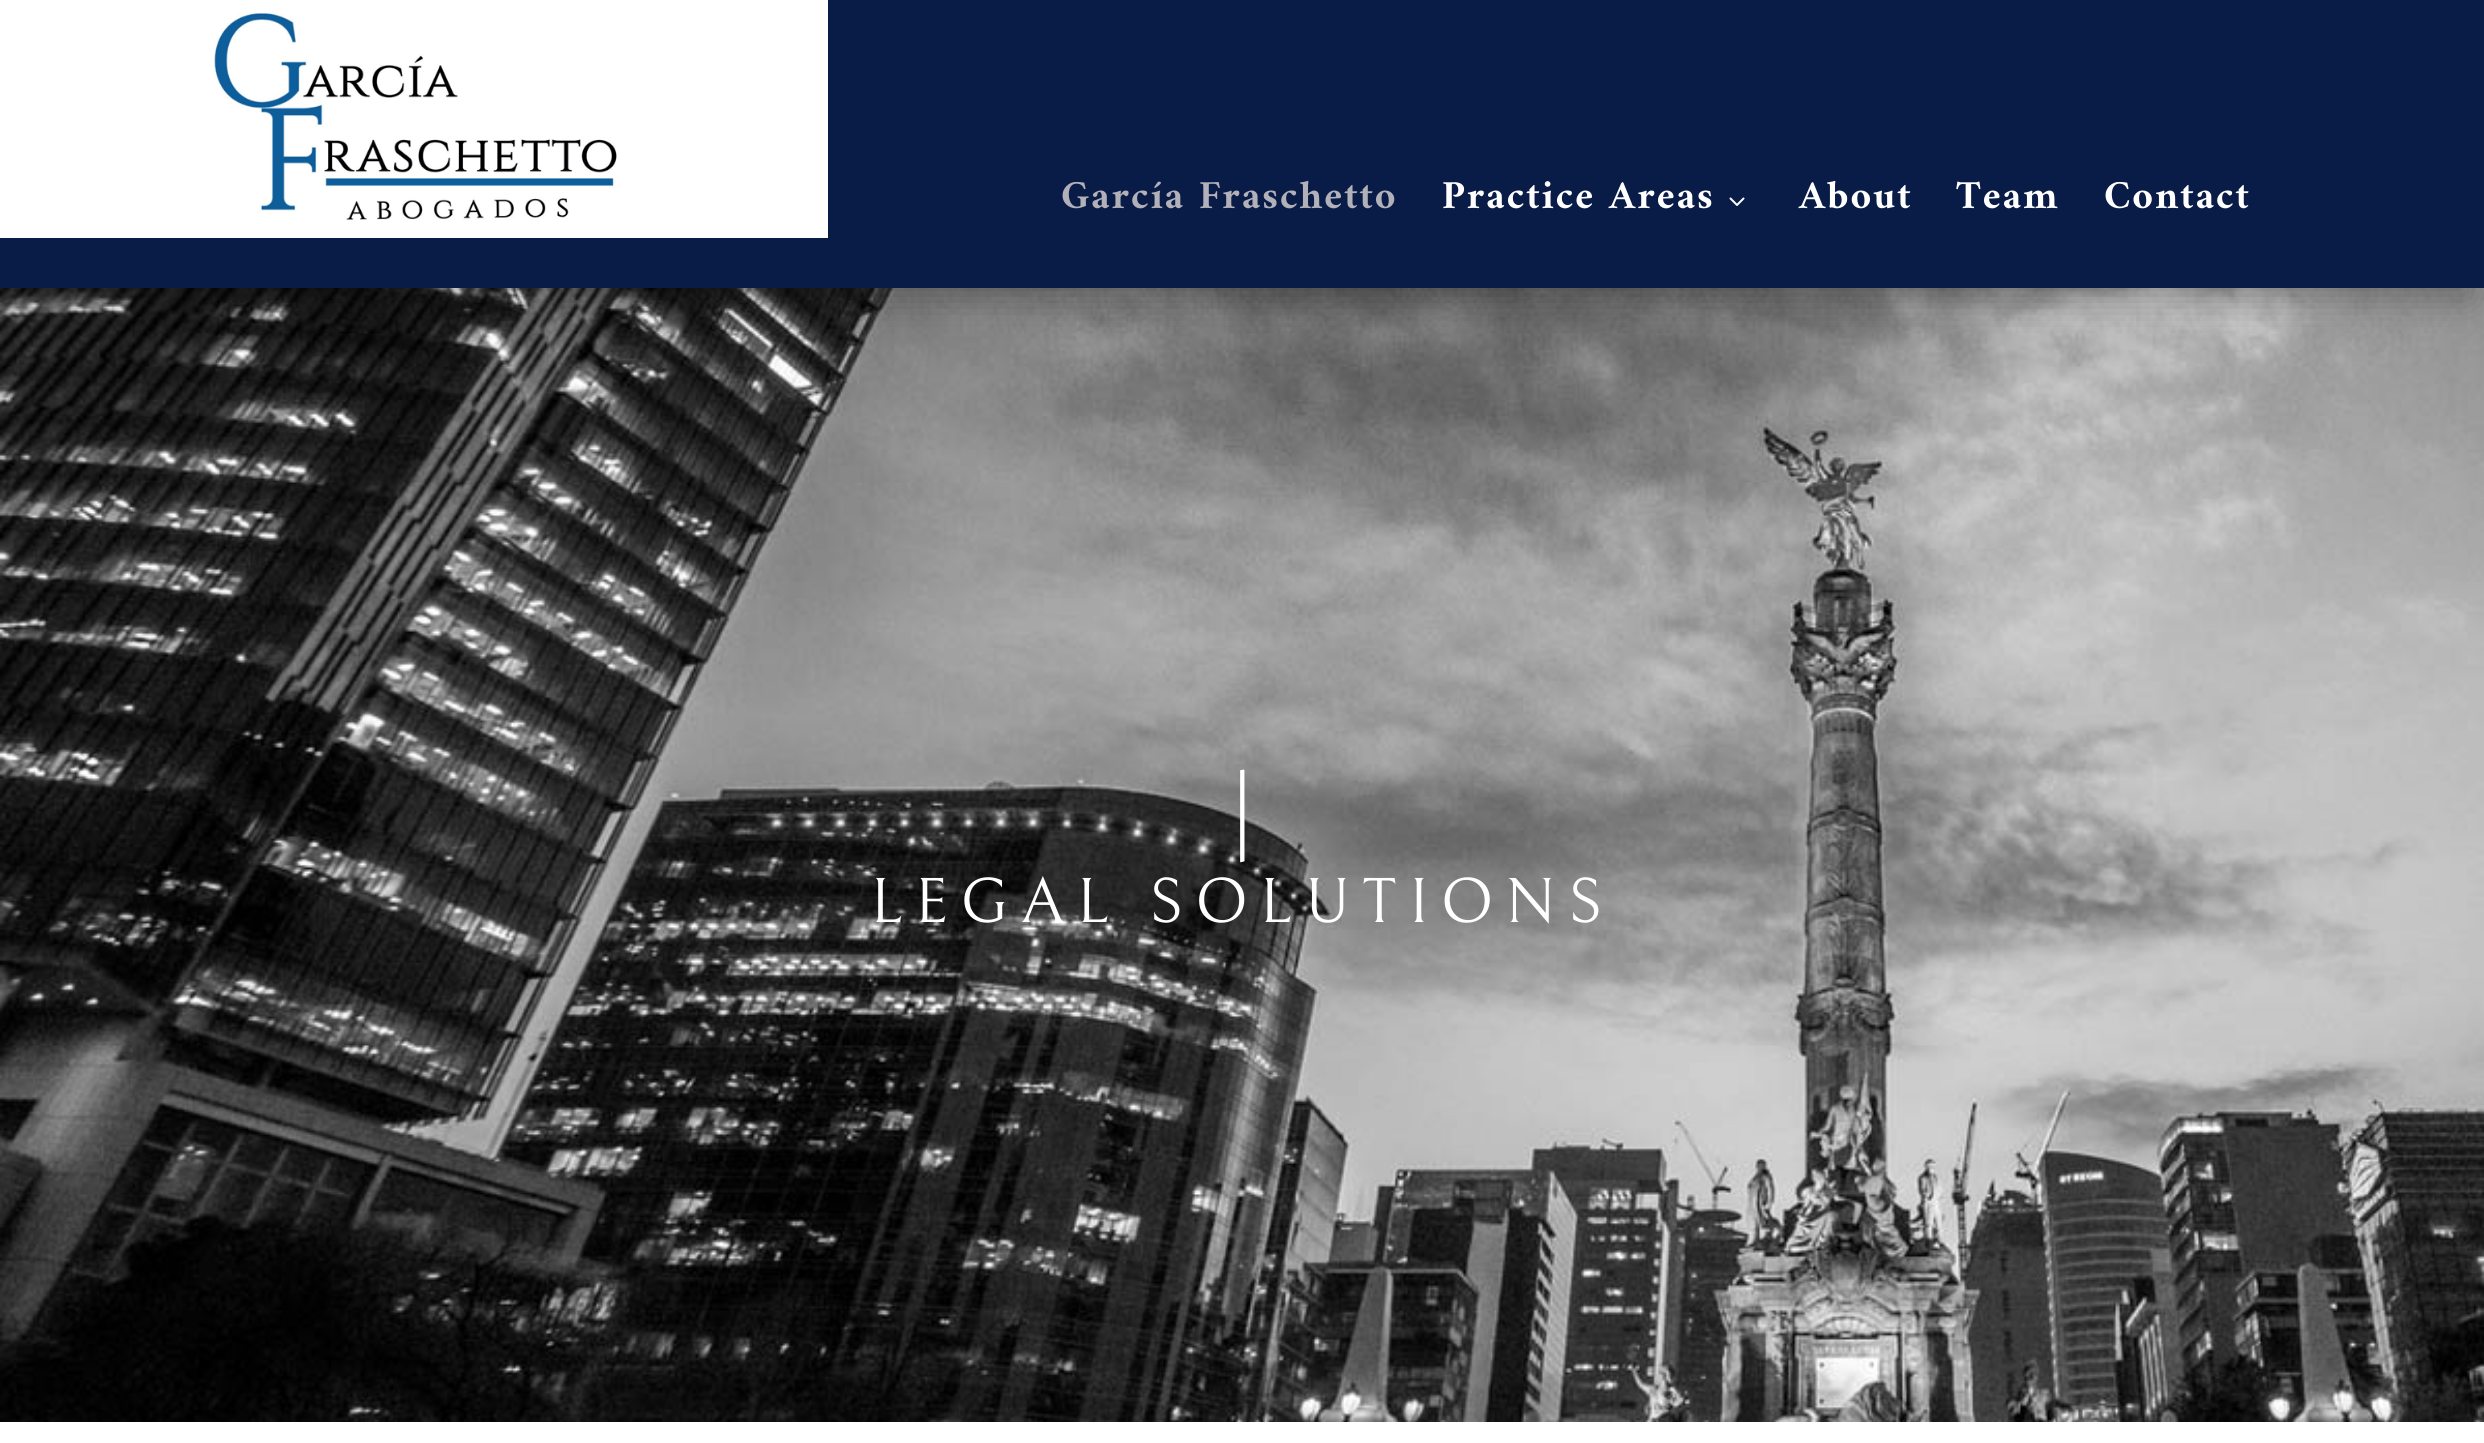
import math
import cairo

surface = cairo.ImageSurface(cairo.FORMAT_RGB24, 2484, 1443)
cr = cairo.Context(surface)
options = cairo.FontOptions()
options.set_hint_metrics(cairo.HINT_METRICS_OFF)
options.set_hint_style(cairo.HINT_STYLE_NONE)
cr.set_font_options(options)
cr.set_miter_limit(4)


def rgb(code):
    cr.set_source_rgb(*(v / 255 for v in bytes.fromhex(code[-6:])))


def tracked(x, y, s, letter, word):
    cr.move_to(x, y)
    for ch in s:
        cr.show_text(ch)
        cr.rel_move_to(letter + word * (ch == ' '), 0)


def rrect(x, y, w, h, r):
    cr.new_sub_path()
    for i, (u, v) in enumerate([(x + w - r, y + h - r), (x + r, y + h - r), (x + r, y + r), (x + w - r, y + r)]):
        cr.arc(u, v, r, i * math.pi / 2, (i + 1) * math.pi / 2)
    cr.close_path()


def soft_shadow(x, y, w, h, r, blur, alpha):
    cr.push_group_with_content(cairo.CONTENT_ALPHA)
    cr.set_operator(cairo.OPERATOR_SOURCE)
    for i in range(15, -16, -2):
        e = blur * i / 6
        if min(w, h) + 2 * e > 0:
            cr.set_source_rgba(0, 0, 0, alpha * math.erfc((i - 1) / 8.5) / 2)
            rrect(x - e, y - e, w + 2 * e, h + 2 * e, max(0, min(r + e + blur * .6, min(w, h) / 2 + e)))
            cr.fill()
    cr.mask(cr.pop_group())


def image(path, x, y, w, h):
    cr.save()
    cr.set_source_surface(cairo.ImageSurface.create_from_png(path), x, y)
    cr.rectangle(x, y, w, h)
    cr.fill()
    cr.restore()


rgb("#ffffff")
cr.paint()
image("img/3.png", 0, 288, 2484, 1134)
rgb("#000000")
soft_shadow(12, 36, 2460, 264, 0, 18, 0.3)
rgb("#091c47")
cr.rectangle(0, 0, 2484, 288)
cr.fill()
rgb("#ffffff")
cr.rectangle(0, 0, 828, 238)
cr.fill()
image("img/1.png", 214, 12, 403, 208)
image("img/2.png", 1729, 197, 16, 9)
cr.select_font_face("Amiri", cairo.FONT_SLANT_NORMAL, cairo.FONT_WEIGHT_BOLD)
cr.set_font_size(40)
rgb("#b2b1b9")
tracked(1061, 208, "García Fraschetto", 2, 0)
rgb("#ffffff")
for x, y, s in [
    (1442, 208, "Practice Areas"),
    (1799, 208, "About"),
    (1956, 208, "Team"),
    (2104, 208, "Contact"),
]:
    tracked(x, y, s, 2, 0)
cr.set_font_size(84)
cr.move_to(1234, 830)
cr.show_text("|")
cr.select_font_face("Bellefair")
cr.set_font_size(64)
tracked(870, 922, "LEGAL SOLUTIONS", 12, 0)
surface.write_to_png("page.png")
